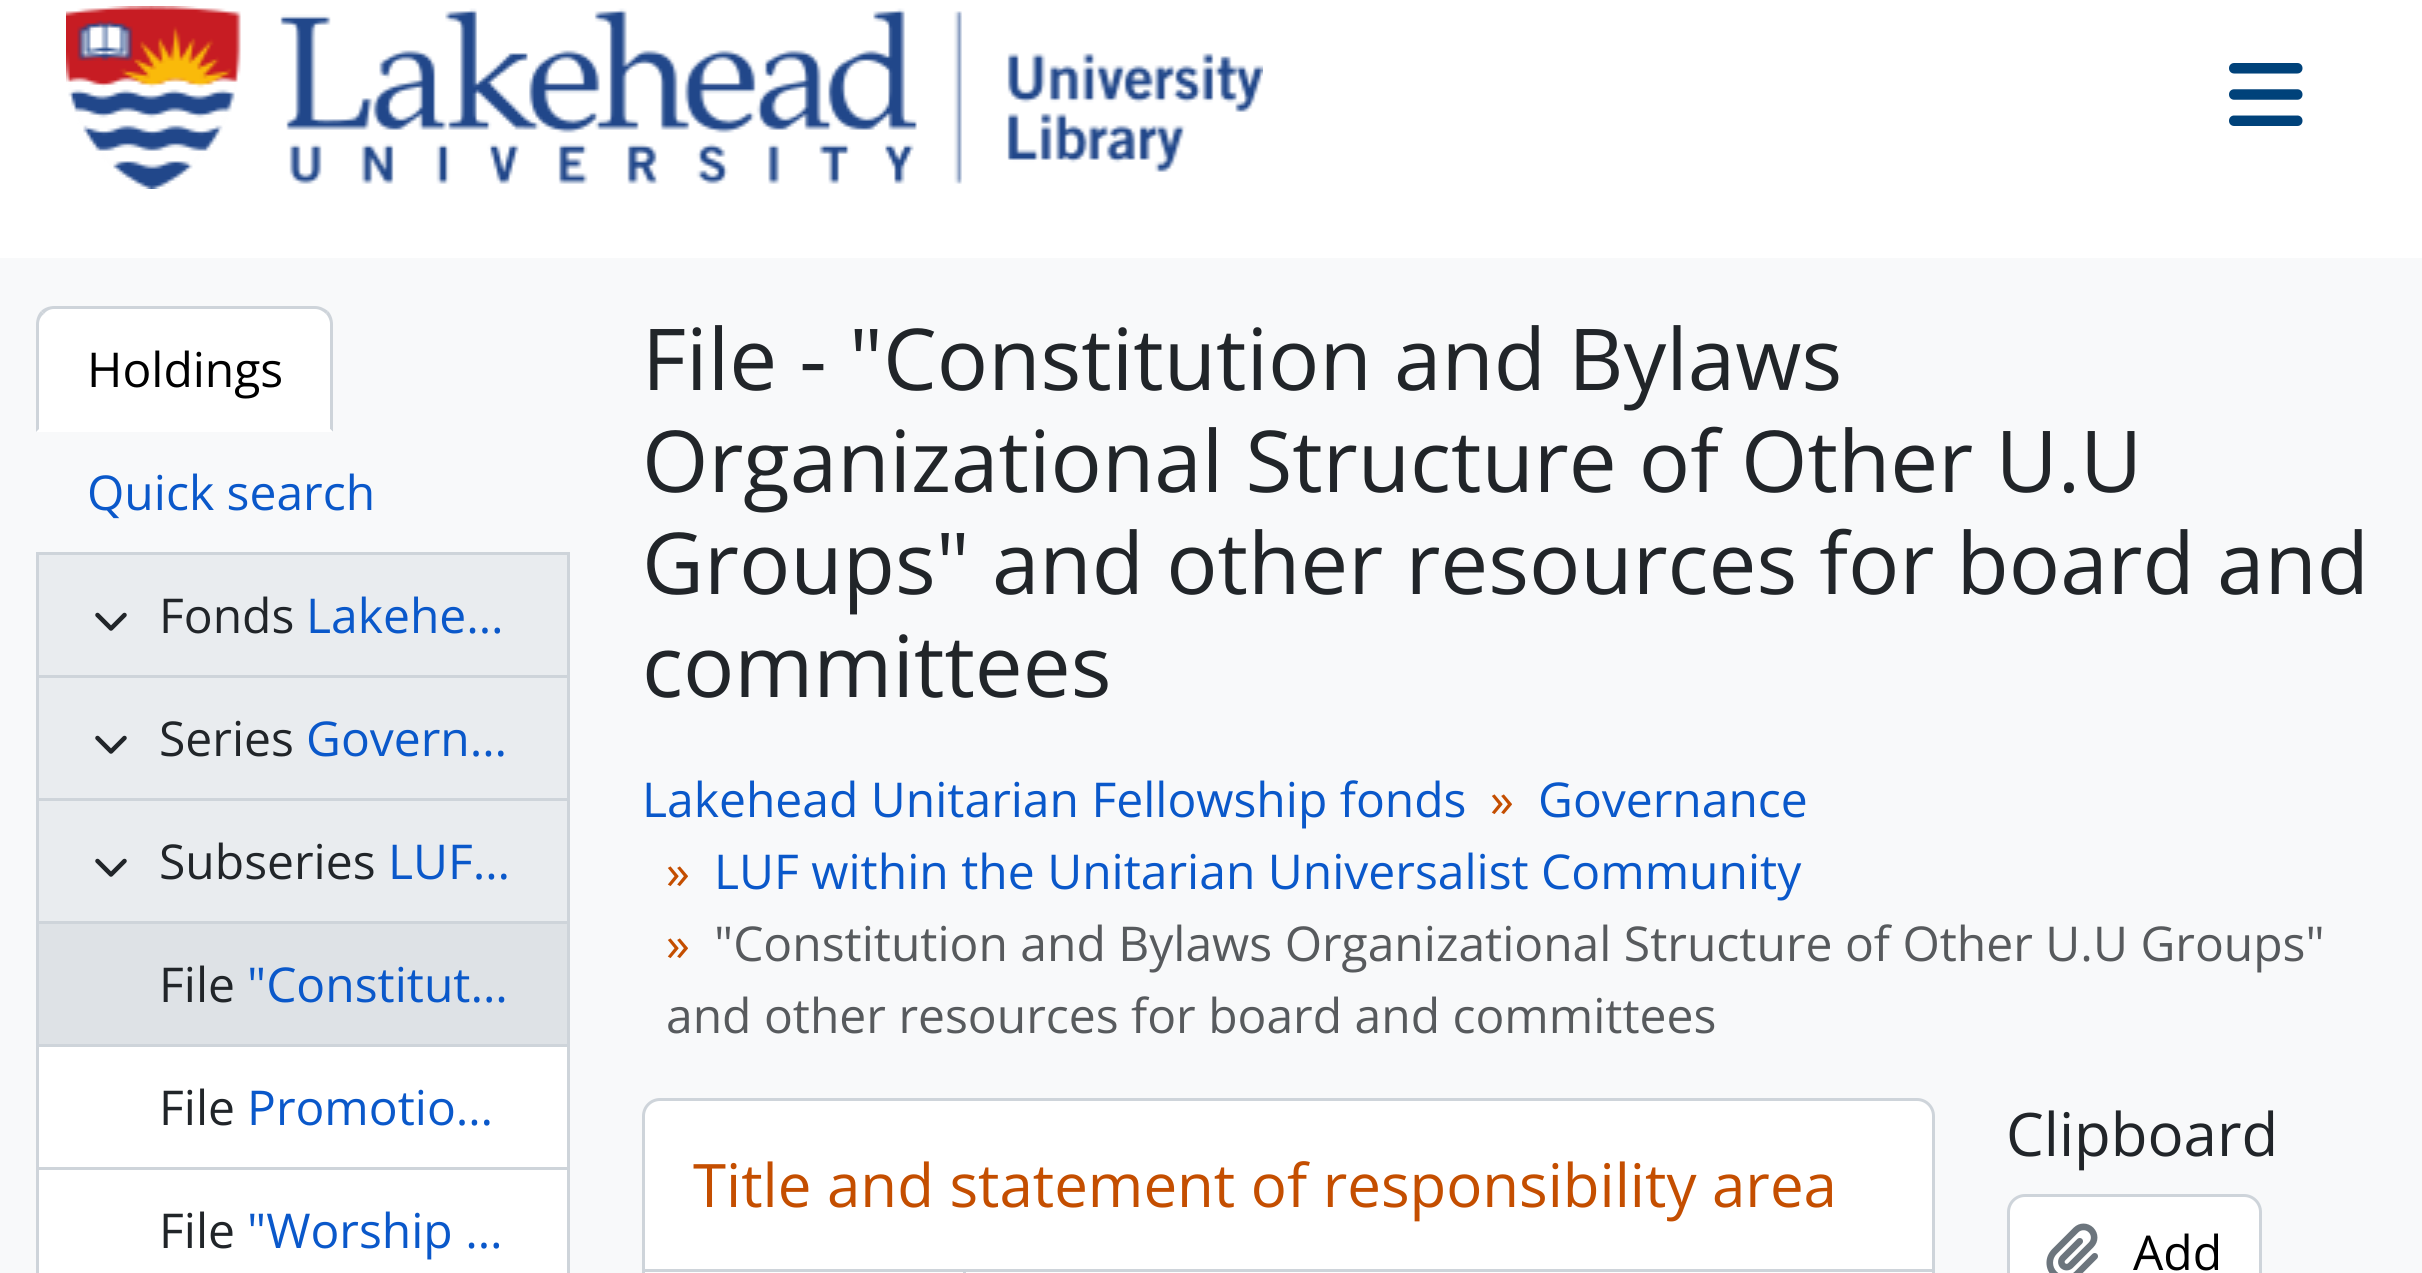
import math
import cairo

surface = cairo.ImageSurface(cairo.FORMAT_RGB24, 2422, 1273)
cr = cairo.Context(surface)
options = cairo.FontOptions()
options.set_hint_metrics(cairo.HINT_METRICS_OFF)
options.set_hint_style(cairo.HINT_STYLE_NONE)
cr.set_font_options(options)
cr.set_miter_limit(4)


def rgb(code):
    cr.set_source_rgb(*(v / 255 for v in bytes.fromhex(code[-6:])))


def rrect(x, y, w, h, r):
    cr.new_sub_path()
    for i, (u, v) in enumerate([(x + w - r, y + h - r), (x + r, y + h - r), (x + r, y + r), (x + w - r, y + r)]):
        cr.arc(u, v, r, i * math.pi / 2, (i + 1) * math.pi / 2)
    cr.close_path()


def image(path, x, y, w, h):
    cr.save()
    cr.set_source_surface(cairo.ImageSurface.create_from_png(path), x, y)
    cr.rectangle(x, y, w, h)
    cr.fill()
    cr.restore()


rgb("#f8f9fa")
cr.paint()
rgb("#ffffff")
cr.rectangle(0, 0, 2422, 258)
cr.fill()
image("img/1.png", 66, 6, 1197, 183)
image("img/2.png", 2229, 63, 74, 63)
cr.new_path()
cr.move_to(54, 306)
cr.line_to(315, 306)
cr.curve_to(325, 306, 333, 314, 333, 324)
cr.line_to(333, 432)
cr.line_to(36, 432)
cr.line_to(36, 324)
cr.curve_to(36, 314, 44, 306, 54, 306)
cr.close_path()
cr.fill()
rgb("#ced4da")
cr.new_path()
cr.move_to(54, 306)
cr.curve_to(49, 306, 44, 308, 41, 311)
cr.line_to(44, 314)
cr.curve_to(46, 311, 50, 309, 54, 309)
cr.line_to(315, 309)
cr.curve_to(319, 309, 323, 311, 326, 314)
cr.line_to(328, 311)
cr.curve_to(324, 308, 320, 306, 315, 306)
cr.close_path()
cr.fill()
cr.new_path()
cr.move_to(333, 432)
cr.line_to(333, 324)
cr.curve_to(333, 319, 331, 314, 328, 311)
cr.line_to(326, 314)
cr.curve_to(328, 316, 330, 320, 330, 324)
cr.line_to(330, 429)
cr.close_path()
cr.fill()
rgb("#ffffff")
cr.new_path()
cr.move_to(333, 432)
cr.line_to(330, 429)
cr.line_to(39, 429)
cr.line_to(36, 432)
cr.close_path()
cr.fill()
rgb("#ced4da")
cr.new_path()
cr.move_to(36, 432)
cr.line_to(39, 429)
cr.line_to(39, 324)
cr.curve_to(39, 320, 41, 316, 44, 314)
cr.line_to(41, 311)
cr.curve_to(38, 314, 36, 319, 36, 324)
cr.close_path()
cr.fill()
for x, y, w, h, color in [
    (36, 552, 534, 3, "#ced4da"),
    (39, 555, 528, 120, "#e9ecef"),
    (567, 555, 3, 369, "#ced4da"),
    (36, 675, 534, 3, "#ced4da"),
    (36, 555, 3, 123, "#ced4da"),
]:
    rgb(color)
    cr.rectangle(x, y, w, h)
    cr.fill()
image("img/3.png", 95, 612, 32, 19)
for x, y, w, h, color in [
    (39, 678, 528, 120, "#e9ecef"),
    (36, 798, 534, 3, "#ced4da"),
    (36, 678, 3, 246, "#ced4da"),
]:
    rgb(color)
    cr.rectangle(x, y, w, h)
    cr.fill()
image("img/3.png", 95, 735, 32, 19)
rgb("#e9ecef")
cr.rectangle(39, 801, 528, 120)
cr.fill()
image("img/3.png", 95, 858, 32, 19)
rgb("#dee2e6")
cr.rectangle(37.5, 922.5, 531, 123)
cr.fill_preserve()
rgb("#ced4da")
cr.set_line_width(3)
cr.stroke()
for x, y, w, h, color in [
    (39, 1047, 528, 120, "#ffffff"),
    (567, 1047, 3, 226, "#ced4da"),
    (36, 1167, 534, 3, "#ced4da"),
    (36, 1047, 3, 226, "#ced4da"),
    (39, 1170, 528, 103, "#ffffff"),
]:
    rgb(color)
    cr.rectangle(x, y, w, h)
    cr.fill()
rrect(643.5, 1099.5, 1290, 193, 16.5)
cr.fill_preserve()
rgb("#ced4da")
cr.stroke()
cr.rectangle(645, 1269, 1287, 3)
cr.fill()
cr.rectangle(963, 1272, 3, 1)
cr.fill()
rgb("#ffffff")
rrect(2008.5, 1195.5, 252, 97, 16.5)
cr.fill_preserve()
rgb("#ced4da")
cr.stroke()
image("img/4.png", 2046, 1223, 52, 50)
cr.select_font_face("Open Sans")
cr.set_font_size(48)
rgb("#000000")
cr.move_to(87, 387)
cr.show_text("Holdings")
rgb("#0a58ca")
cr.move_to(87, 510)
cr.show_text("Quick search")
rgb("#212529")
cr.move_to(159, 633)
cr.show_text("Fonds")
rgb("#0a58ca")
cr.move_to(306, 633)
cr.show_text("Lakehe…")
rgb("#212529")
cr.move_to(159, 756)
cr.show_text("Series")
rgb("#0a58ca")
cr.move_to(306, 756)
cr.show_text("Govern…")
rgb("#212529")
cr.move_to(159, 879)
cr.show_text("Subseries")
rgb("#0a58ca")
cr.move_to(388, 879)
cr.show_text("LUF…")
rgb("#212529")
cr.move_to(159, 1002)
cr.show_text("File")
rgb("#0a58ca")
cr.move_to(247, 1002)
cr.show_text("\"Constitut…")
rgb("#212529")
cr.move_to(159, 1125)
cr.show_text("File")
rgb("#0a58ca")
cr.move_to(247, 1125)
cr.show_text("Promotio…")
rgb("#212529")
cr.move_to(159, 1248)
cr.show_text("File")
rgb("#0a58ca")
cr.move_to(247, 1248)
cr.show_text("\"Worship …")
cr.set_font_size(85.4)
rgb("#212529")
for x, y, s in [
    (642, 390, "File - \"Constitution and Bylaws"),
    (642, 492, "Organizational Structure of Other U.U"),
    (642, 594, "Groups\" and other resources for board and"),
    (642, 697, "committees"),
]:
    cr.move_to(x, y)
    cr.show_text(s)
cr.set_font_size(48)
rgb("#0a58ca")
cr.move_to(642, 817)
cr.show_text("Lakehead Unitarian Fellowship fonds")
rgb("#c44e00")
cr.move_to(1490, 817)
cr.show_text("»")
rgb("#0a58ca")
cr.move_to(1538, 817)
cr.show_text("Governance")
rgb("#c44e00")
cr.move_to(666, 889)
cr.show_text("»")
rgb("#0a58ca")
cr.move_to(714, 889)
cr.show_text("LUF within the Unitarian Universalist Community")
rgb("#c44e00")
cr.move_to(666, 961)
cr.show_text("»")
rgb("#575a5d")
cr.move_to(714, 961)
cr.show_text("\"Constitution and Bylaws Organizational Structure of Other U.U Groups\"")
cr.move_to(666, 1033)
cr.show_text("and other resources for board and committees")
cr.set_font_size(60)
rgb("#c44e00")
cr.move_to(693, 1207)
cr.show_text("Title and statement of responsibility area")
rgb("#212529")
cr.move_to(2006, 1156)
cr.show_text("Clipboard")
cr.set_font_size(48)
rgb("#000000")
cr.move_to(2133, 1270)
cr.show_text("Add")
surface.write_to_png("page.png")
